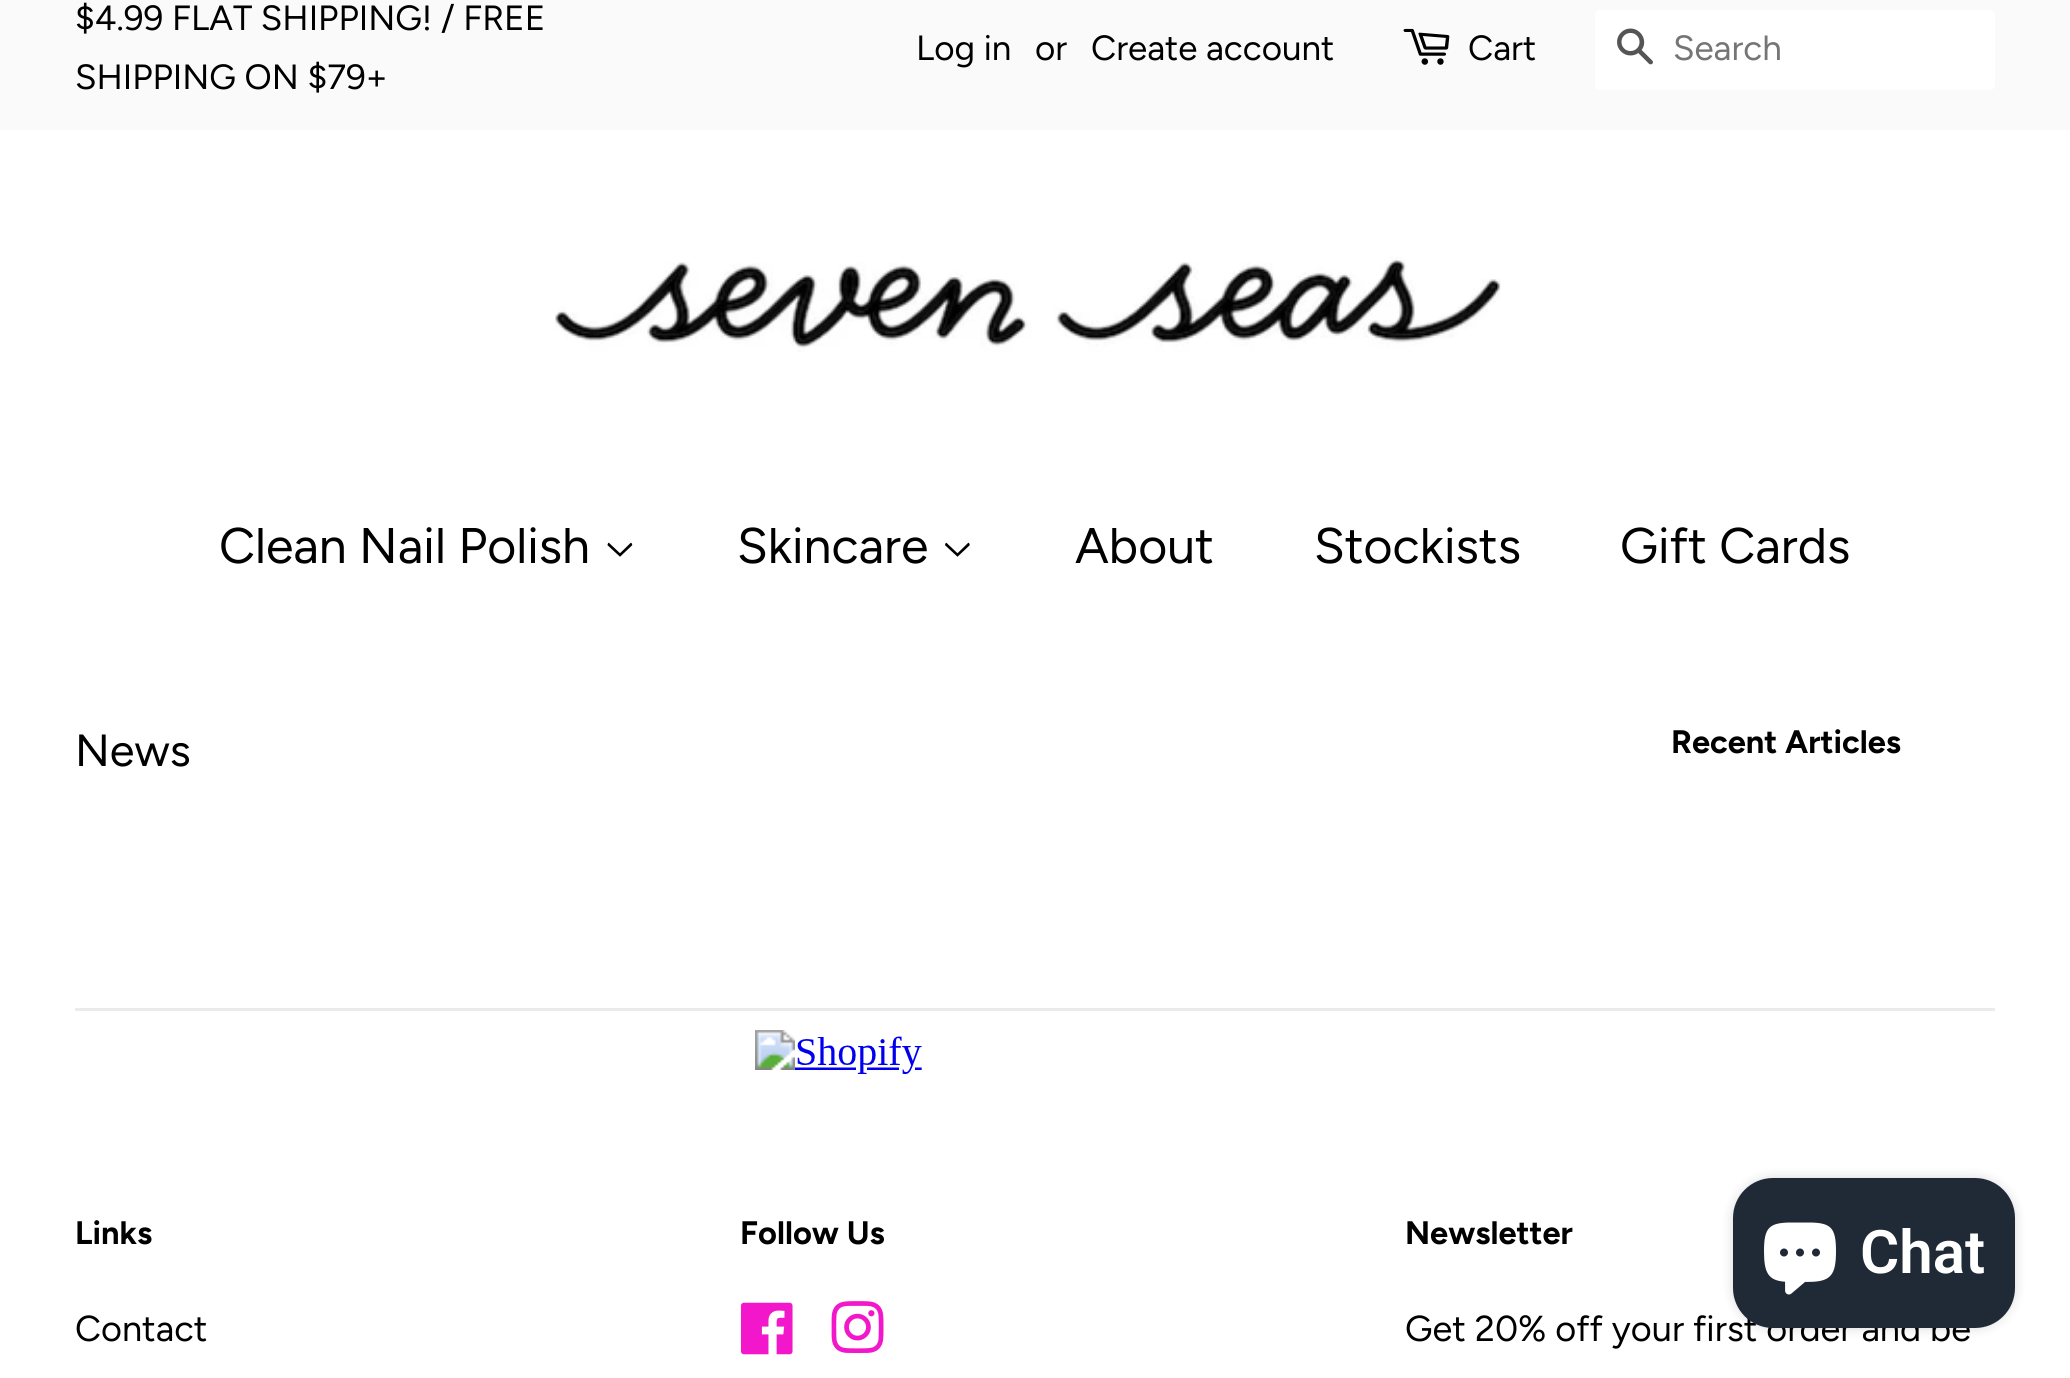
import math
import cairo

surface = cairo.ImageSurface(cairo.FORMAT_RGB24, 2070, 1378)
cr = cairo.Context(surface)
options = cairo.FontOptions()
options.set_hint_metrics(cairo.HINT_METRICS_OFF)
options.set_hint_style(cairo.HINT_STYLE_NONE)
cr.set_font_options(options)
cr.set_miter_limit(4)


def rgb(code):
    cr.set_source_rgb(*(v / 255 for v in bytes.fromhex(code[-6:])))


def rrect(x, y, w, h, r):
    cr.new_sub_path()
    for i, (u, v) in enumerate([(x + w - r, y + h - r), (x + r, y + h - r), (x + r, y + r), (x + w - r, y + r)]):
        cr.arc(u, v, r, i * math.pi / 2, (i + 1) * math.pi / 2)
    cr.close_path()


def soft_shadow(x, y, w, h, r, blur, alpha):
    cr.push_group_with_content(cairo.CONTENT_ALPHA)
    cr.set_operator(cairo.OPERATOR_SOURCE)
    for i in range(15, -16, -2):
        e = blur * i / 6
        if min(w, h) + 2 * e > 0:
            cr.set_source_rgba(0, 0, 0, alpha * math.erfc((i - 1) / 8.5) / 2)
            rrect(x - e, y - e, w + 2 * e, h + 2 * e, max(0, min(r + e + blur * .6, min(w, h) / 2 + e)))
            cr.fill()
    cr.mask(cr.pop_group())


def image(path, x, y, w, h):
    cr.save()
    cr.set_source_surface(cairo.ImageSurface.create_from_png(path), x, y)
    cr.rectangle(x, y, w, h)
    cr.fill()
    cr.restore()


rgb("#ffffff")
cr.paint()
rgb("#fafafa")
cr.rectangle(0, 0, 2070, 130)
cr.fill()
image("img/1.png", 1403, 28, 47, 37)
rgb("#ffffff")
rrect(1595, 10, 400, 80, 5)
cr.fill()
image("img/2.png", 1617, 28, 36, 37)
image("img/3.png", 555, 255, 946, 97)
image("img/4.png", 607, 542, 26, 15)
image("img/5.png", 945, 542, 25, 15)
rgb("#ebebeb")
cr.rectangle(75, 1008, 1920, 3)
cr.fill()
image("img/6.png", 755, 1030, 167, 44)
image("img/7.png", 740, 1302, 53, 53)
image("img/8.png", 831, 1301, 53, 52)
rgb("#000000")
soft_shadow(1733, 1178, 282, 150, 40, 6, 0.15)
cr.select_font_face("Figtree")
cr.set_font_size(35)
rgb("#000000")
for x, y, s in [
    (75, 30, "$4.99 FLAT SHIPPING! / FREE"),
    (75, 89, "SHIPPING ON $79+"),
    (916, 60, "Log in"),
    (1035, 60, "or"),
    (1091, 60, "Create account"),
    (1468, 60, "Cart"),
]:
    cr.move_to(x, y)
    cr.show_text(s)
rgb("#757575")
cr.move_to(1673, 60)
cr.show_text("Search")
cr.set_font_size(50)
rgb("#000000")
for x, y, s in [
    (219, 563, "Clean Nail Polish"),
    (737, 563, "Skincare"),
    (1075, 563, "About"),
    (1314, 563, "Stockists"),
    (1620, 563, "Gift Cards"),
]:
    cr.move_to(x, y)
    cr.show_text(s)
cr.set_font_size(45)
cr.move_to(75, 766)
cr.show_text("News")
cr.select_font_face("Figtree", cairo.FONT_SLANT_NORMAL, cairo.FONT_WEIGHT_BOLD)
cr.set_font_size(32.5)
cr.move_to(1671, 753)
cr.show_text("Recent Articles")
cr.move_to(75, 1244)
cr.show_text("Links")
cr.select_font_face("Figtree")
cr.set_font_size(36.1)
cr.move_to(75, 1341)
cr.show_text("Contact")
cr.select_font_face("Figtree", cairo.FONT_SLANT_NORMAL, cairo.FONT_WEIGHT_BOLD)
cr.set_font_size(32.5)
cr.move_to(740, 1244)
cr.show_text("Follow Us")
cr.move_to(1405, 1244)
cr.show_text("Newsletter")
cr.select_font_face("Figtree")
cr.set_font_size(36.1)
cr.move_to(1405, 1341)
cr.show_text("Get 20% off your first order and be")
rgb("#202a36")
rrect(1733, 1178, 282, 150, 40)
cr.fill()
image("img/9.png", 1764, 1222, 72, 73)
cr.select_font_face("Roboto SemiBold")
cr.set_font_size(60)
rgb("#ffffff")
cr.move_to(1860, 1273)
cr.show_text("Chat")
surface.write_to_png("page.png")
